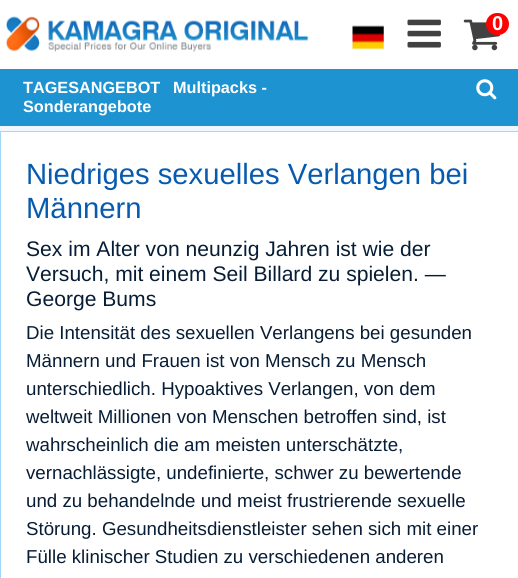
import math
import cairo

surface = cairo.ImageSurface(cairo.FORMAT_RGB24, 518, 578)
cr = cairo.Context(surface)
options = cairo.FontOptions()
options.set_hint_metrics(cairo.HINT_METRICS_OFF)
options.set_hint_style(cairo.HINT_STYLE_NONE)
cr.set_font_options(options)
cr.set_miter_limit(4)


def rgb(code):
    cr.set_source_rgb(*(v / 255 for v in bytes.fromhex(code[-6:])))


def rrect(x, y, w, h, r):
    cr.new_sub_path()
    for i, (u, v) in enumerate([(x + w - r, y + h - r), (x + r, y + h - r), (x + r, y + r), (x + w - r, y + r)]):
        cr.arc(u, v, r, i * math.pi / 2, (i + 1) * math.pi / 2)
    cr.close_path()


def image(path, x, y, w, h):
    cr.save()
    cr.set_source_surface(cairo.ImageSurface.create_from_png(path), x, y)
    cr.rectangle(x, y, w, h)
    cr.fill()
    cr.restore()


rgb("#f1f7fe")
cr.paint()
rgb("#ffffff")
cr.rectangle(0, 0, 518, 69)
cr.fill()
image("img/1.png", 6, 16, 303, 36)
image("img/2.png", 352, 25, 32, 25)
image("img/3.png", 407, 19, 34, 29)
image("img/4.png", 463, 19, 37, 32)
rgb("#ff0000")
rrect(486, 13, 23, 22, 11)
cr.fill()
rgb("#1e93d1")
cr.rectangle(0, 69, 518, 57)
cr.fill()
image("img/5.png", 476, 79, 21, 21)
rgb("#ffffff")
cr.rectangle(0.5, 131.5, 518, 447)
cr.fill_preserve()
rgb("#a0d9f7")
cr.set_line_width(1)
cr.stroke()
cr.select_font_face("Liberation Sans", cairo.FONT_SLANT_NORMAL, cairo.FONT_WEIGHT_BOLD)
cr.set_font_size(20)
rgb("#ffffff")
cr.move_to(492, 30)
cr.show_text("0")
cr.set_font_size(16.25)
for x, y, s in [
    (23, 93, "TAGESANGEBOT"),
    (173, 93, "Multipacks -"),
    (23, 112, "Sonderangebote"),
]:
    cr.move_to(x, y)
    cr.show_text(s)
cr.select_font_face("Liberation Sans")
cr.set_font_size(29.25)
rgb("#075baf")
cr.move_to(26, 184)
cr.show_text("Niedriges sexuelles Verlangen bei")
cr.move_to(26, 218)
cr.show_text("Männern")
cr.set_font_size(21.1)
rgb("#071d35")
for x, y, s in [
    (26, 256, "Sex im Alter von neunzig Jahren ist wie der"),
    (26, 281, "Versuch, mit einem Seil Billard zu spielen. —"),
    (26, 306, "George Bums"),
]:
    cr.move_to(x, y)
    cr.show_text(s)
cr.set_font_size(18.7)
for x, y, s in [
    (26, 339, "Die Intensität des sexuellen Verlangens bei gesunden"),
    (26, 367, "Männern und Frauen ist von Mensch zu Mensch"),
    (26, 395, "unterschiedlich. Hypoaktives Verlangen, von dem"),
    (26, 423, "weltweit Millionen von Menschen betroffen sind, ist"),
    (26, 451, "wahrscheinlich die am meisten unterschätzte,"),
    (26, 479, "vernachlässigte, undefinierte, schwer zu bewertende"),
    (26, 507, "und zu behandelnde und meist frustrierende sexuelle"),
    (26, 535, "Störung. Gesundheitsdienstleister sehen sich mit einer"),
    (26, 563, "Fülle klinischer Studien zu verschiedenen anderen"),
]:
    cr.move_to(x, y)
    cr.show_text(s)
surface.write_to_png("page.png")
